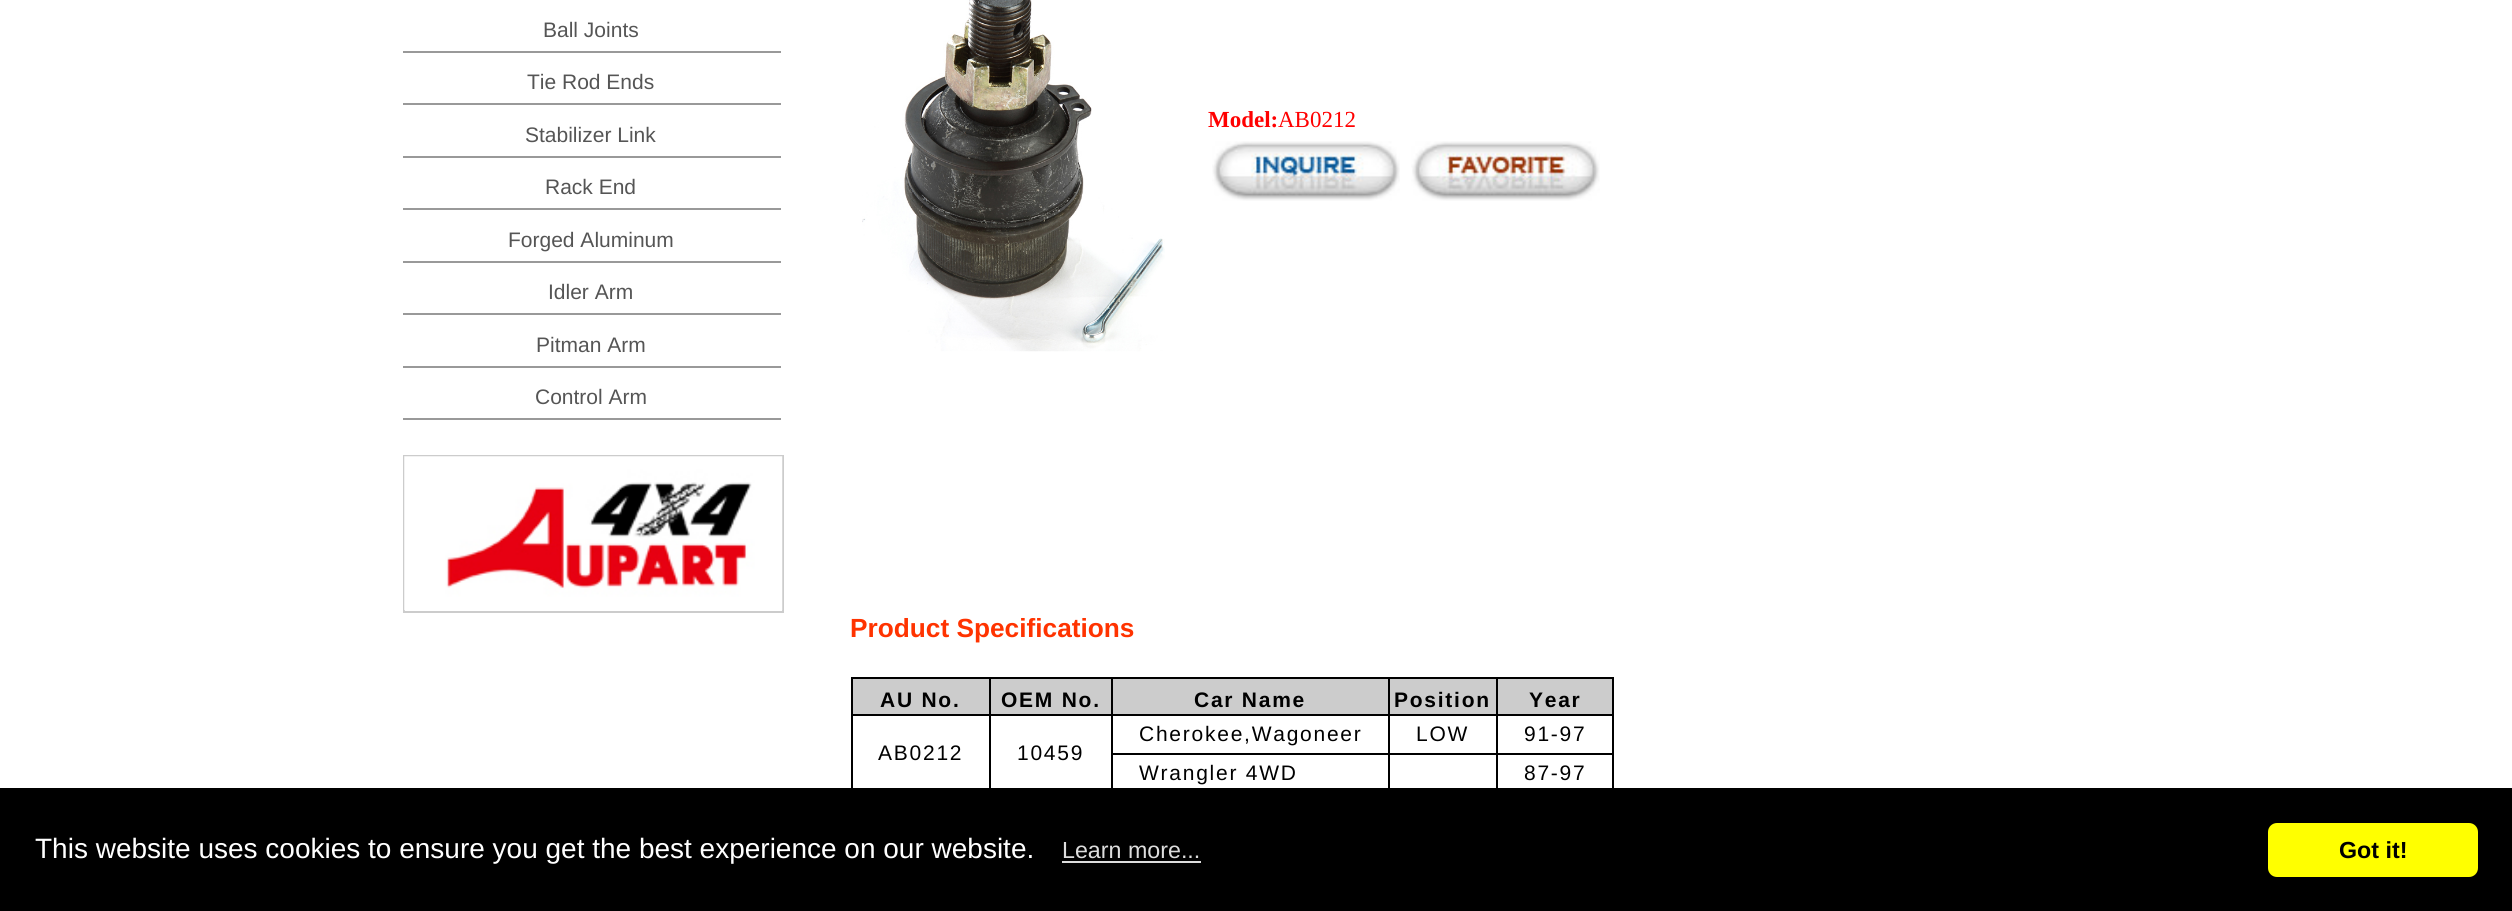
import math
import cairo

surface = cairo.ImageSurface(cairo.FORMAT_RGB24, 2512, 911)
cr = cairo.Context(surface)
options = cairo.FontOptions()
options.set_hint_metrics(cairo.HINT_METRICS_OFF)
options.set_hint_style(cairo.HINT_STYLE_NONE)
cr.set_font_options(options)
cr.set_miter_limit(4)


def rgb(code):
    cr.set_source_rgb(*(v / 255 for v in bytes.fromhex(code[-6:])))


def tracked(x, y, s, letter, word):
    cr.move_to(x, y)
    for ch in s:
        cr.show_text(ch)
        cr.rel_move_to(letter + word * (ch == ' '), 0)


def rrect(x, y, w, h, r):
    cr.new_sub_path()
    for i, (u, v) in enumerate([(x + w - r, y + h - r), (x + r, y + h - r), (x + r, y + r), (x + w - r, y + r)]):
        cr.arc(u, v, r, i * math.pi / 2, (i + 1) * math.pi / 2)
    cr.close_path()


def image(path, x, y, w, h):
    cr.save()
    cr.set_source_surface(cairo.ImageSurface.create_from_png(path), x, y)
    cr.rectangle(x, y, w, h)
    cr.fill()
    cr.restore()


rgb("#ffffff")
cr.paint()
for x, y, w, h, color in [
    (403, 51, 378, 2, "#999999"),
    (403, 103, 378, 2, "#999999"),
    (403, 156, 378, 2, "#999999"),
    (403, 208, 378, 2, "#999999"),
    (403, 261, 378, 2, "#999999"),
    (403, 313, 378, 2, "#999999"),
    (403, 366, 378, 2, "#999999"),
    (403, 418, 378, 2, "#999999"),
]:
    rgb(color)
    cr.rectangle(x, y, w, h)
    cr.fill()
cr.rectangle(404, 456, 379, 156)
rgb("#cccccc")
cr.stroke()
image("img/1.png", 404, 456, 379, 155)
image("img/2.png", 862, 0, 303, 352)
image("img/3.png", 1212, 141, 188, 60)
image("img/4.png", 1411, 141, 189, 60)
for x, y, w, h, color in [
    (851, 677, 763, 2, "#000000"),
    (851, 677, 2, 116, "#000000"),
    (853, 679, 136, 35, "#cccccc"),
    (1496, 753, 2, 40, "#000000"),
    (1612, 677, 2, 116, "#000000"),
    (1496, 753, 118, 2, "#000000"),
    (1496, 714, 2, 40, "#000000"),
    (1496, 714, 118, 2, "#000000"),
    (1496, 677, 2, 39, "#000000"),
    (1388, 753, 2, 40, "#000000"),
    (1388, 753, 110, 2, "#000000"),
    (1388, 714, 2, 40, "#000000"),
    (1388, 714, 110, 2, "#000000"),
    (1388, 677, 2, 39, "#000000"),
    (1111, 753, 279, 2, "#000000"),
    (1111, 714, 2, 79, "#000000"),
    (1111, 714, 279, 2, "#000000"),
    (1111, 677, 2, 39, "#000000"),
    (989, 714, 2, 79, "#000000"),
    (989, 714, 124, 2, "#000000"),
    (989, 677, 2, 39, "#000000"),
    (851, 714, 140, 2, "#000000"),
    (991, 679, 120, 35, "#cccccc"),
    (1113, 679, 275, 35, "#cccccc"),
    (1390, 679, 106, 35, "#cccccc"),
    (1498, 679, 114, 35, "#cccccc"),
    (0, 788, 2512, 123, "#000000"),
    (1062, 861, 139, 2, "#dddddd"),
]:
    rgb(color)
    cr.rectangle(x, y, w, h)
    cr.fill()
rgb("#ffff00")
rrect(2268, 823, 210, 54, 9)
cr.fill()
cr.select_font_face("Liberation Sans")
cr.set_font_size(21)
rgb("#555555")
for x, y, s in [
    (543, 37, "Ball Joints"),
    (527, 89, "Tie Rod Ends"),
    (525, 142, "Stabilizer Link"),
    (545, 194, "Rack End"),
    (508, 247, "Forged Aluminum"),
    (548, 299, "Idler Arm"),
    (536, 352, "Pitman Arm"),
    (535, 404, "Control Arm"),
]:
    cr.move_to(x, y)
    cr.show_text(s)
cr.select_font_face("Liberation Serif", cairo.FONT_SLANT_NORMAL, cairo.FONT_WEIGHT_BOLD)
cr.set_font_size(23)
rgb("#ff0000")
cr.move_to(1208, 127)
cr.show_text("Model:")
cr.select_font_face("Liberation Serif")
cr.move_to(1278, 127)
cr.show_text("AB0212")
cr.select_font_face("Liberation Sans", cairo.FONT_SLANT_NORMAL, cairo.FONT_WEIGHT_BOLD)
cr.set_font_size(26.25)
rgb("#ff3300")
cr.move_to(850, 637)
cr.show_text("Product Specifications")
cr.set_font_size(21)
rgb("#000000")
for x, y, s in [
    (880, 707, "AU No."),
    (1001, 707, "OEM No."),
    (1194, 707, "Car Name"),
    (1394, 707, "Position"),
    (1529, 707, "Year"),
]:
    tracked(x, y, s, 1.75, 0)
cr.select_font_face("Liberation Sans")
for x, y, s in [
    (1139, 741, "Cherokee,Wagoneer"),
    (1416, 741, "LOW"),
    (1524, 741, "91-97"),
    (878, 760, "AB0212"),
    (1017, 760, "10459"),
    (1139, 780, "Wrangler 4WD"),
    (1524, 780, "87-97"),
]:
    tracked(x, y, s, 1.75, 0)
cr.set_font_size(28)
rgb("#ffffff")
cr.move_to(35, 858)
cr.show_text("This website uses cookies to ensure you get the best experience on our website.")
cr.set_font_size(23.25)
rgb("#dddddd")
cr.move_to(1062, 858)
cr.show_text("Learn more...")
cr.select_font_face("Liberation Sans", cairo.FONT_SLANT_NORMAL, cairo.FONT_WEIGHT_BOLD)
rgb("#000000")
cr.move_to(2339, 858)
cr.show_text("Got it!")
surface.write_to_png("page.png")
